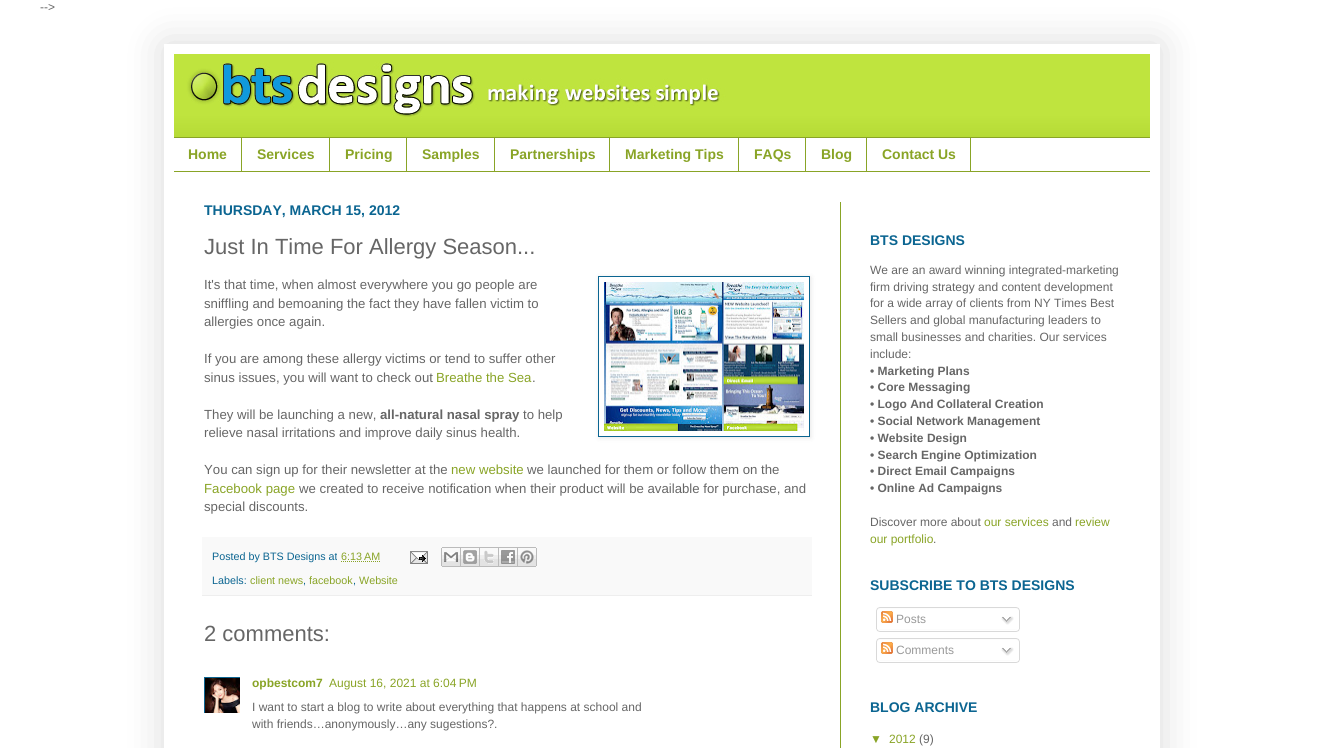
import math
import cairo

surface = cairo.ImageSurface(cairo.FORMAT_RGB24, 1324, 748)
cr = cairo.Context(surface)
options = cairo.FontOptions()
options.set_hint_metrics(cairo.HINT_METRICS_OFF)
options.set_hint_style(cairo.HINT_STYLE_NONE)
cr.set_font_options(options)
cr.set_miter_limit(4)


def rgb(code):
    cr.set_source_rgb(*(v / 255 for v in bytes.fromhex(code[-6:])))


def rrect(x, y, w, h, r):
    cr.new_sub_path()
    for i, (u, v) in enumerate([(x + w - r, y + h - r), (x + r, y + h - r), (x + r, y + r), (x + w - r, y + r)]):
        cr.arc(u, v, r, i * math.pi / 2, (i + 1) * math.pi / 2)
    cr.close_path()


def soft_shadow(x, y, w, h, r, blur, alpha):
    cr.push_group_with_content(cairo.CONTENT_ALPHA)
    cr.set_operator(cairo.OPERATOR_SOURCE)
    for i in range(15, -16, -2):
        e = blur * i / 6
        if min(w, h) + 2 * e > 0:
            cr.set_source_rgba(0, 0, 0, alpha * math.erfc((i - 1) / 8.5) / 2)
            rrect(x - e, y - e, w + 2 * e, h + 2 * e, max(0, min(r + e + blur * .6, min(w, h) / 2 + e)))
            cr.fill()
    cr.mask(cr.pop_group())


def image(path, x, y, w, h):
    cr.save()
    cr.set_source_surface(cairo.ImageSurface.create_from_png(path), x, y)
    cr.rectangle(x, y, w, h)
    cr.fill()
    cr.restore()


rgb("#ffffff")
cr.paint()
cr.save()
cr.set_fill_rule(cairo.FILL_RULE_EVEN_ODD)
cr.new_path()
cr.move_to(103, 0)
cr.line_to(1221, 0)
cr.line_to(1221, 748)
cr.line_to(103, 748)
cr.close_path()
cr.move_to(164, 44)
cr.line_to(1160, 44)
cr.line_to(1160, 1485)
cr.line_to(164, 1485)
cr.close_path()
cr.clip()
rgb("#000000")
soft_shadow(164, 44, 996, 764, 0, 20, 0.15)
cr.restore()
image("img/1.png", 174, 54, 976, 83)
for x, y, w, h, color in [
    (174, 137, 976, 1, "#89a426"),
    (174, 171, 976, 1, "#89a426"),
    (241, 138, 1, 33, "#89a426"),
    (329, 138, 1, 33, "#89a426"),
    (406, 138, 1, 33, "#89a426"),
    (494, 138, 1, 33, "#89a426"),
    (609, 138, 1, 33, "#89a426"),
    (738, 138, 1, 33, "#89a426"),
    (805, 138, 1, 33, "#89a426"),
    (866, 138, 1, 33, "#89a426"),
    (970, 138, 1, 33, "#89a426"),
    (840, 202, 1, 546, "#89a426"),
]:
    rgb(color)
    cr.rectangle(x, y, w, h)
    cr.fill()
cr.save()
cr.set_fill_rule(cairo.FILL_RULE_EVEN_ODD)
cr.new_path()
cr.move_to(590, 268)
cr.line_to(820, 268)
cr.line_to(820, 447)
cr.line_to(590, 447)
cr.close_path()
cr.move_to(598, 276)
cr.line_to(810, 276)
cr.line_to(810, 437)
cr.line_to(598, 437)
cr.close_path()
cr.clip()
rgb("#000000")
soft_shadow(599, 277, 212, 161, 0, 2.5, 0.1)
cr.restore()
cr.rectangle(598.5, 276.5, 211, 160)
rgb("#0b6591")
cr.set_line_width(1)
cr.stroke()
image("img/2.png", 604, 282, 200, 149)
rgb("#f9f9f9")
cr.rectangle(202, 537, 610, 58)
cr.fill()
rgb("#eeeeee")
cr.rectangle(202, 595, 610, 1)
cr.fill()
cr.new_path()
cr.move_to(341, 561.5)
cr.line_to(380.5, 561.5)
rgb("#89a426")
cr.set_dash([1, 1])
cr.stroke()
image("img/3.png", 410, 551, 18, 13)
image("img/4.png", 441, 547, 20, 20)
image("img/5.png", 461, 547, 19, 20)
image("img/6.png", 480, 547, 19, 20)
image("img/7.png", 499, 547, 19, 20)
image("img/8.png", 518, 547, 19, 20)
cr.save()
cr.rectangle(204, 677, 36, 36)
cr.clip()
cr.rectangle(204.5, 677.5, 37, 37)
rgb("#0b6591")
cr.set_dash([])
cr.stroke()
cr.restore()
image("img/9.png", 205, 678, 35, 35)
image("img/10.png", 876, 607, 144, 22)
image("img/11.png", 881, 611, 12, 12)
image("img/12.png", 1001, 616, 13, 9)
image("img/13.png", 876, 629, 144, 3)
image("img/10.png", 876, 638, 144, 22)
image("img/11.png", 881, 642, 12, 12)
image("img/12.png", 1001, 647, 13, 9)
image("img/13.png", 876, 660, 144, 3)
cr.select_font_face("Liberation Sans")
cr.set_font_size(12)
rgb("#666666")
cr.move_to(40, 11)
cr.show_text("-->")
cr.select_font_face("Liberation Sans", cairo.FONT_SLANT_NORMAL, cairo.FONT_WEIGHT_BOLD)
cr.set_font_size(14)
rgb("#89a426")
for x, y, s in [
    (188, 159, "Home"),
    (257, 159, "Services"),
    (345, 159, "Pricing"),
    (422, 159, "Samples"),
    (510, 159, "Partnerships"),
    (625, 159, "Marketing Tips"),
    (754, 159, "FAQs"),
    (821, 159, "Blog"),
    (882, 159, "Contact Us"),
]:
    cr.move_to(x, y)
    cr.show_text(s)
rgb("#0b6591")
cr.move_to(204, 215)
cr.show_text("THURSDAY, MARCH 15, 2012")
cr.select_font_face("Liberation Sans")
cr.set_font_size(22)
rgb("#666666")
cr.move_to(204, 254)
cr.show_text("Just In Time For Allergy Season...")
cr.set_font_size(13.2)
for x, y, s in [
    (204, 289, "It's that time, when almost everywhere you go people are"),
    (204, 308, "sniffling and bemoaning the fact they have fallen victim to"),
    (204, 326, "allergies once again."),
    (204, 363, "If you are among these allergy victims or tend to suffer other"),
    (204, 382, "sinus issues, you will want to check out"),
]:
    cr.move_to(x, y)
    cr.show_text(s)
rgb("#89a426")
cr.move_to(436, 382)
cr.show_text("Breathe the Sea")
rgb("#666666")
cr.move_to(532, 382)
cr.show_text(".")
cr.move_to(204, 419)
cr.show_text("They will be launching a new,")
cr.select_font_face("Liberation Sans", cairo.FONT_SLANT_NORMAL, cairo.FONT_WEIGHT_BOLD)
cr.move_to(380, 419)
cr.show_text("all-natural nasal spray")
cr.select_font_face("Liberation Sans")
for x, y, s in [
    (523, 419, "to help"),
    (204, 437, "relieve nasal irritations and improve daily sinus health."),
    (204, 474, "You can sign up for their newsletter at the"),
]:
    cr.move_to(x, y)
    cr.show_text(s)
rgb("#89a426")
cr.move_to(451, 474)
cr.show_text("new website")
rgb("#666666")
cr.move_to(527, 474)
cr.show_text("we launched for them or follow them on the")
rgb("#89a426")
cr.move_to(204, 493)
cr.show_text("Facebook page")
rgb("#666666")
cr.move_to(299, 493)
cr.show_text("we created to receive notification when their product will be available for purchase, and")
cr.move_to(204, 511)
cr.show_text("special discounts.")
cr.set_font_size(10.75)
rgb("#0b6591")
cr.move_to(212, 560)
cr.show_text("Posted by BTS Designs at")
rgb("#89a426")
cr.move_to(341, 560)
cr.show_text("6:13 AM")
rgb("#0b6591")
cr.move_to(212, 584)
cr.show_text("Labels:")
rgb("#89a426")
cr.move_to(250, 584)
cr.show_text("client news")
rgb("#0b6591")
cr.move_to(303, 584)
cr.show_text(",")
rgb("#89a426")
cr.move_to(309, 584)
cr.show_text("facebook")
rgb("#0b6591")
cr.move_to(353, 584)
cr.show_text(",")
rgb("#89a426")
cr.move_to(359, 584)
cr.show_text("Website")
cr.set_font_size(22)
rgb("#666666")
cr.move_to(204, 641)
cr.show_text("2 comments:")
cr.select_font_face("Liberation Sans", cairo.FONT_SLANT_NORMAL, cairo.FONT_WEIGHT_BOLD)
cr.set_font_size(12)
rgb("#89a426")
cr.move_to(252, 687)
cr.show_text("opbestcom7")
cr.select_font_face("Liberation Sans")
cr.move_to(329, 687)
cr.show_text("August 16, 2021 at 6:04 PM")
rgb("#666666")
cr.move_to(252, 711)
cr.show_text("I want to start a blog to write about everything that happens at school and")
cr.move_to(252, 728)
cr.show_text("with friends…anonymously…any sugestions?.")
cr.select_font_face("Liberation Sans", cairo.FONT_SLANT_NORMAL, cairo.FONT_WEIGHT_BOLD)
cr.set_font_size(14)
rgb("#0b6591")
cr.move_to(870, 245)
cr.show_text("BTS DESIGNS")
cr.select_font_face("Liberation Sans")
cr.set_font_size(12)
rgb("#666666")
for x, y, s in [
    (870, 274, "We are an award winning integrated-marketing"),
    (870, 291, "firm driving strategy and content development"),
    (870, 307, "for a wide array of clients from NY Times Best"),
    (870, 324, "Sellers and global manufacturing leaders to"),
    (870, 341, "small businesses and charities. Our services"),
    (870, 358, "include:"),
]:
    cr.move_to(x, y)
    cr.show_text(s)
cr.select_font_face("Liberation Sans", cairo.FONT_SLANT_NORMAL, cairo.FONT_WEIGHT_BOLD)
for x, y, s in [
    (870, 375, "• Marketing Plans"),
    (870, 391, "• Core Messaging"),
    (870, 408, "• Logo And Collateral Creation"),
    (870, 425, "• Social Network Management"),
    (870, 442, "• Website Design"),
    (870, 459, "• Search Engine Optimization"),
    (870, 475, "• Direct Email Campaigns"),
    (870, 492, "• Online Ad Campaigns"),
]:
    cr.move_to(x, y)
    cr.show_text(s)
cr.select_font_face("Liberation Sans")
cr.move_to(870, 526)
cr.show_text("Discover more about")
rgb("#89a426")
cr.move_to(984, 526)
cr.show_text("our services")
rgb("#666666")
cr.move_to(1052, 526)
cr.show_text("and")
rgb("#89a426")
cr.move_to(1075, 526)
cr.show_text("review")
cr.move_to(870, 543)
cr.show_text("our portfolio")
rgb("#666666")
cr.move_to(933, 543)
cr.show_text(".")
cr.select_font_face("Liberation Sans", cairo.FONT_SLANT_NORMAL, cairo.FONT_WEIGHT_BOLD)
cr.set_font_size(14)
rgb("#0b6591")
cr.move_to(870, 590)
cr.show_text("SUBSCRIBE TO BTS DESIGNS")
cr.select_font_face("Liberation Sans")
cr.set_font_size(12)
rgb("#999999")
cr.move_to(896, 623)
cr.show_text("Posts")
cr.move_to(896, 654)
cr.show_text("Comments")
cr.select_font_face("Liberation Sans", cairo.FONT_SLANT_NORMAL, cairo.FONT_WEIGHT_BOLD)
cr.set_font_size(14)
rgb("#0b6591")
cr.move_to(870, 712)
cr.show_text("BLOG ARCHIVE")
cr.select_font_face("Liberation Sans")
cr.set_font_size(12)
rgb("#89a426")
cr.move_to(870, 743)
cr.show_text("▼")
cr.move_to(889, 743)
cr.show_text("2012")
rgb("#666666")
cr.move_to(919, 743)
cr.show_text("(9)")
surface.write_to_png("page.png")
